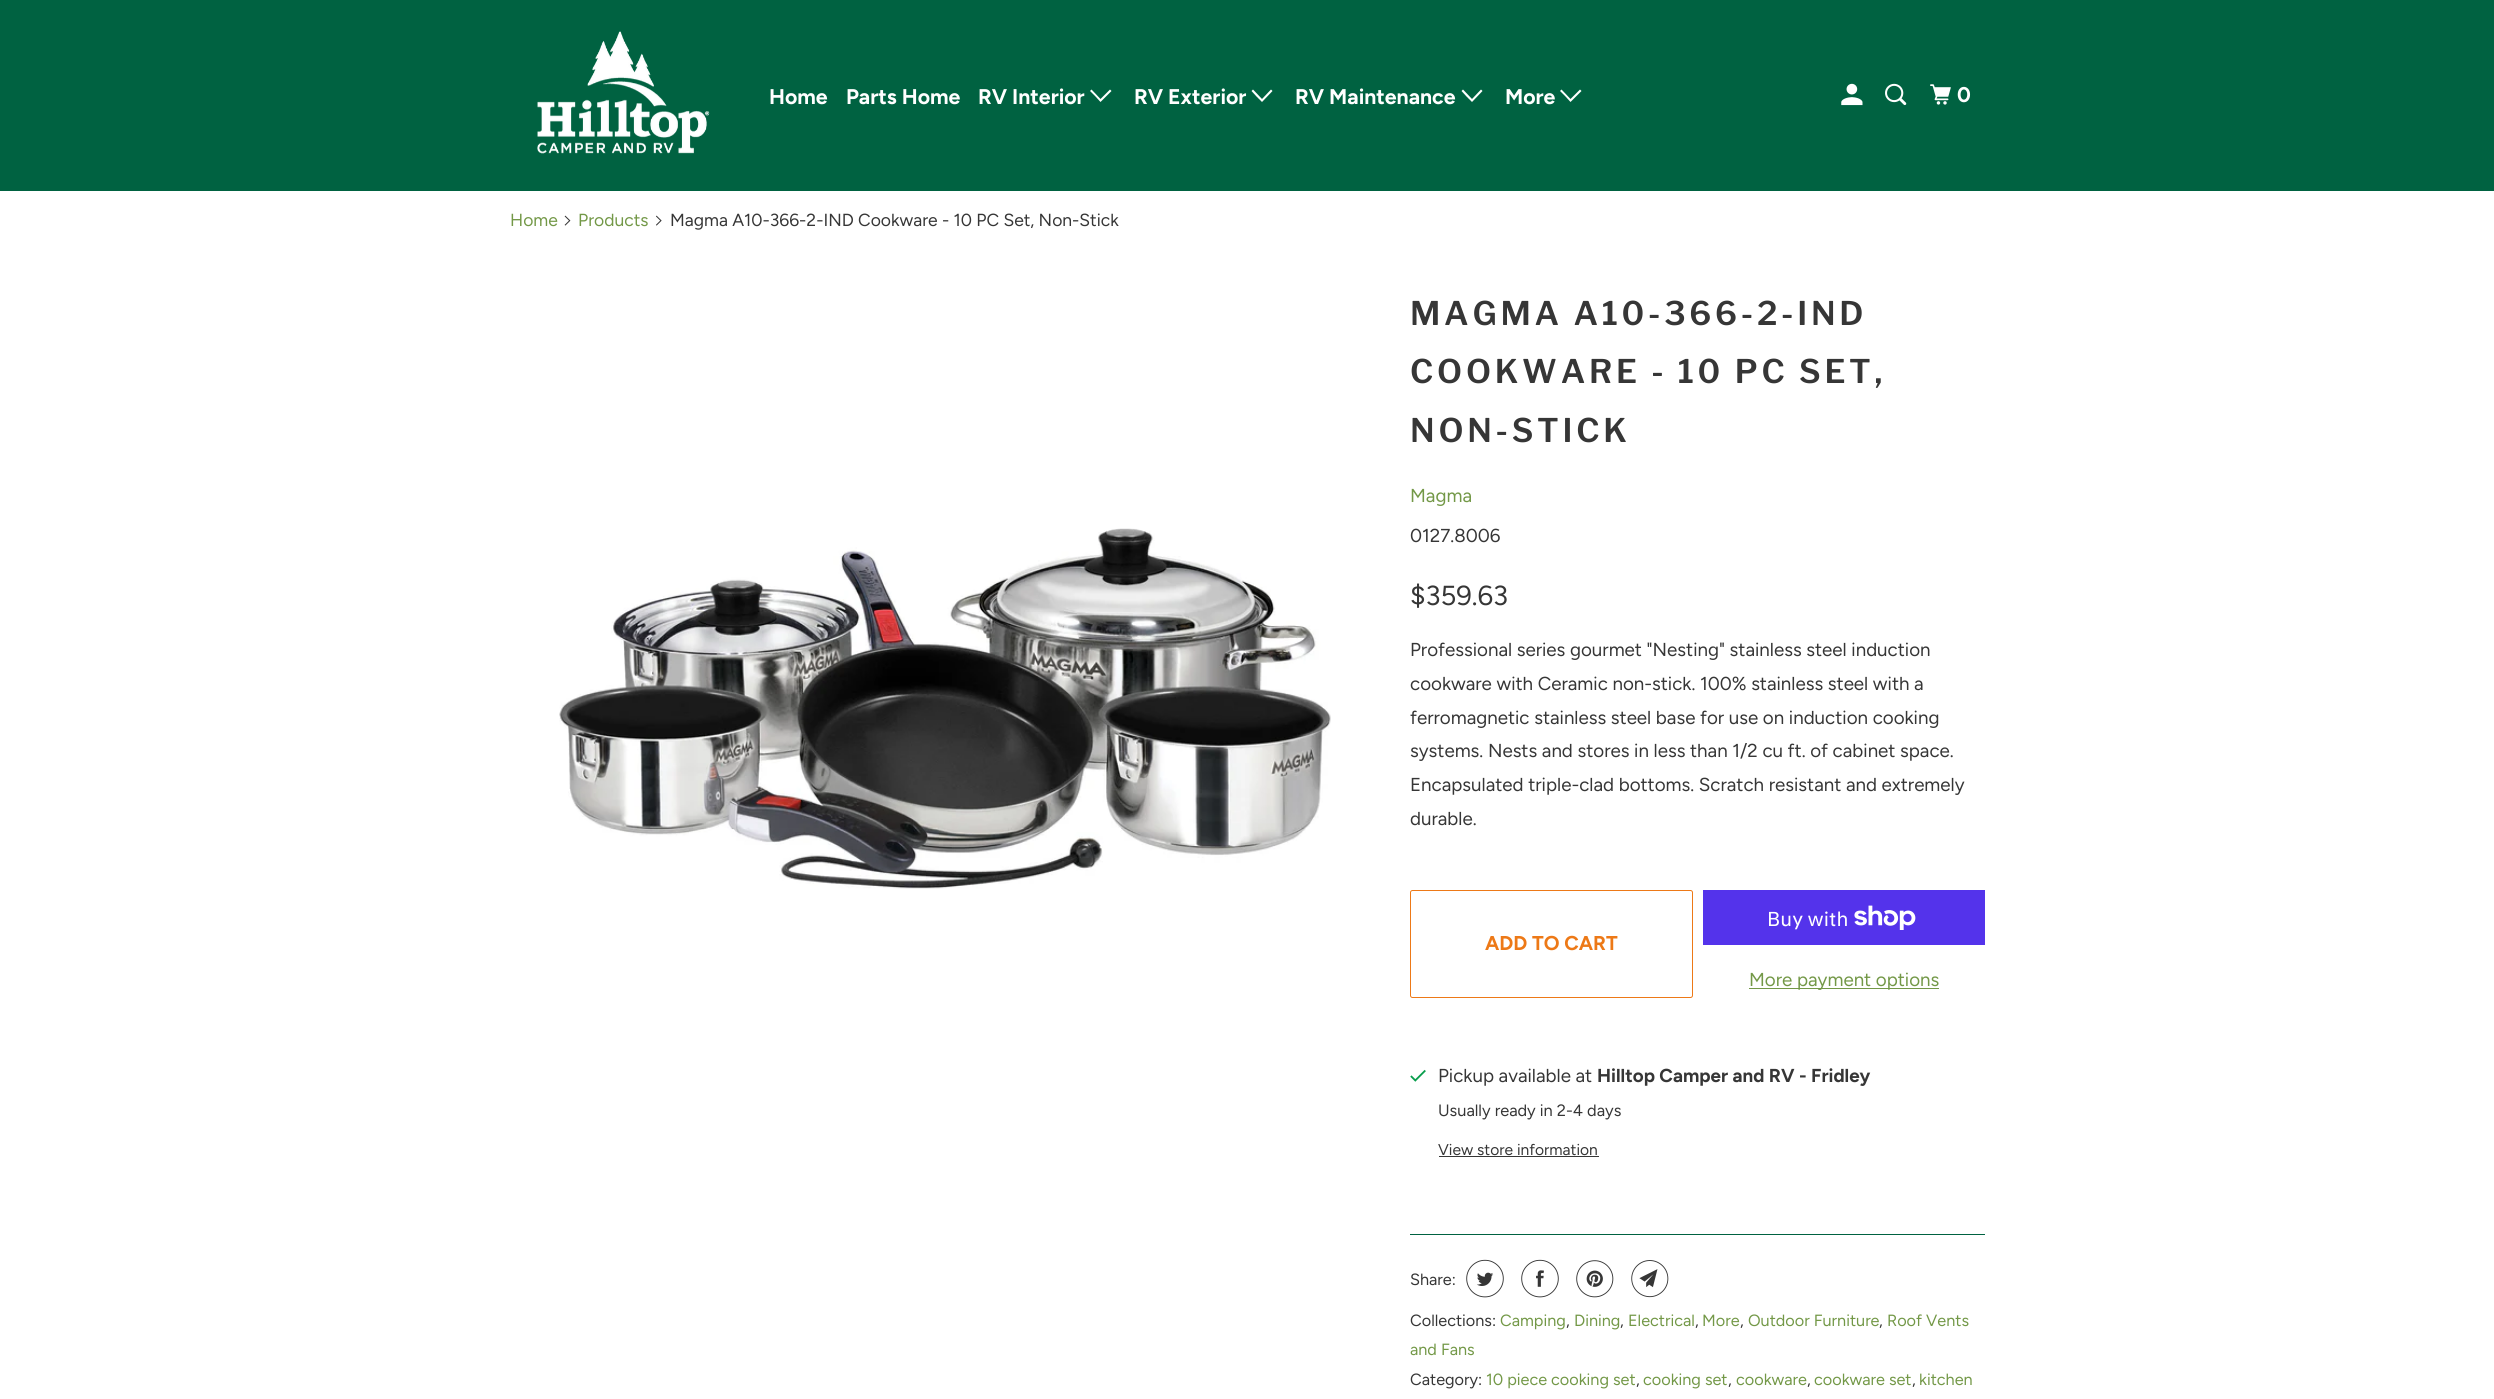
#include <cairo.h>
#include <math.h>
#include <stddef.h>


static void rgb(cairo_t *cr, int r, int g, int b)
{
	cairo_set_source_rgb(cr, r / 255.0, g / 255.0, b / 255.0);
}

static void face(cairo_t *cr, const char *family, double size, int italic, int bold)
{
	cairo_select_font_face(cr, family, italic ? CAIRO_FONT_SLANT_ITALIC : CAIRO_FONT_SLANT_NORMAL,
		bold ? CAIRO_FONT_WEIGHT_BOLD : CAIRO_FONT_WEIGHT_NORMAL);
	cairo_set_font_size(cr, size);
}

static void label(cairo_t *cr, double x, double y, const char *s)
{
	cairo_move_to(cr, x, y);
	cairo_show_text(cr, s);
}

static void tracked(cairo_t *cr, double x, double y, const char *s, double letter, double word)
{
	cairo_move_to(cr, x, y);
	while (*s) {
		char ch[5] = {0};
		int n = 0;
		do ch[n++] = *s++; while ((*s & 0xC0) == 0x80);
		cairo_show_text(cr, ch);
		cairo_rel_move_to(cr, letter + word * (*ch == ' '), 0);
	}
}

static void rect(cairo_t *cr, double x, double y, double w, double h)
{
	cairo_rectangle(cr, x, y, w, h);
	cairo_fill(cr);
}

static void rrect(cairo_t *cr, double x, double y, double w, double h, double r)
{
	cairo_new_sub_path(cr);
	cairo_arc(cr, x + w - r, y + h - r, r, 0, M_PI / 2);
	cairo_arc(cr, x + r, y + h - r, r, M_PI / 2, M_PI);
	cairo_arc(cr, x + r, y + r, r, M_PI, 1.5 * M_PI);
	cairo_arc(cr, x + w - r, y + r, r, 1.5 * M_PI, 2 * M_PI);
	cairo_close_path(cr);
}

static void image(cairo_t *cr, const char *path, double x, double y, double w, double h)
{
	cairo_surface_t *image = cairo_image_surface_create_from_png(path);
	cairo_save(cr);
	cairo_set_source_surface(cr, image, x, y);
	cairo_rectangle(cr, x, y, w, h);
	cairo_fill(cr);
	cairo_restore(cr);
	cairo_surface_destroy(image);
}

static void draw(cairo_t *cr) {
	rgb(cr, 255, 255, 255);
	cairo_paint(cr);
	rgb(cr, 0, 98, 65);
	rect(cr, 0, 0, 2494, 191);
	image(cr, "image0.png", 537, 31, 173, 123);
	face(cr, "Figtree", 21.25, 0, 1);
	rgb(cr, 255, 255, 255);
	label(cr, 769, 104, "Home");
	label(cr, 846, 104, "Parts Home");
	label(cr, 978, 104, "RV Interior");
	cairo_new_path(cr);
	cairo_move_to(cr, 1095.5, 96.5);
	cairo_line_to(cr, 1090, 91);
	cairo_line_to(cr, 1091.5, 89.5);
	cairo_line_to(cr, 1100.5, 99);
	cairo_line_to(cr, 1110, 89.5);
	cairo_line_to(cr, 1111.5, 91);
	cairo_line_to(cr, 1100.5, 102);
	cairo_close_path(cr);
	cairo_fill(cr);
	label(cr, 1134, 104, "RV Exterior");
	cairo_new_path(cr);
	cairo_move_to(cr, 1256.5, 96.5);
	cairo_line_to(cr, 1251.5, 91);
	cairo_line_to(cr, 1253, 89.5);
	cairo_line_to(cr, 1262, 99);
	cairo_line_to(cr, 1271, 89.5);
	cairo_line_to(cr, 1272.5, 91);
	cairo_line_to(cr, 1262, 102);
	cairo_close_path(cr);
	cairo_fill(cr);
	label(cr, 1295, 104, "RV Maintenance");
	cairo_new_path(cr);
	cairo_move_to(cr, 1466.5, 96.5);
	cairo_line_to(cr, 1461.5, 91);
	cairo_line_to(cr, 1463, 89.5);
	cairo_line_to(cr, 1472, 99);
	cairo_line_to(cr, 1481, 89.5);
	cairo_line_to(cr, 1482.5, 91);
	cairo_line_to(cr, 1472, 102);
	cairo_close_path(cr);
	cairo_fill(cr);
	label(cr, 1505, 104, "More");
	cairo_new_path(cr);
	cairo_move_to(cr, 1565.5, 96.5);
	cairo_line_to(cr, 1560, 91);
	cairo_line_to(cr, 1561.5, 89.5);
	cairo_line_to(cr, 1570.5, 99);
	cairo_line_to(cr, 1580, 89.5);
	cairo_line_to(cr, 1581.5, 91);
	cairo_line_to(cr, 1570.5, 102);
	cairo_close_path(cr);
	cairo_fill(cr);
	image(cr, "image1.png", 1841, 83, 22, 23);
	image(cr, "image2.png", 1885, 83, 22, 23);
	image(cr, "image3.png", 1930, 84, 21, 21);
	label(cr, 1957, 102, "0");
	face(cr, "Figtree", 17.5, 0, 0);
	rgb(cr, 115, 152, 71);
	label(cr, 510, 226, "Home");
	image(cr, "image4.png", 564, 215, 7, 11);
	label(cr, 578, 226, "Products");
	image(cr, "image5.png", 656, 215, 6, 11);
	rgb(cr, 54, 54, 54);
	label(cr, 670, 226, "Magma A10-366-2-IND Cookware - 10 PC Set, Non-Stick");
	image(cr, "image6.png", 559, 528, 772, 361);
	face(cr, "Libre Franklin SemiBold", 32.5, 0, 0);
	tracked(cr, 1410, 325, "MAGMA A10-366-2-IND", 3.75, 0);
	tracked(cr, 1410, 383, "COOKWARE - 10 PC SET,", 3.75, 0);
	tracked(cr, 1410, 442, "NON-STICK", 3.75, 0);
	face(cr, "Figtree", 18.75, 0, 0);
	rgb(cr, 115, 152, 71);
	label(cr, 1410, 502, "Magma");
	rgb(cr, 54, 54, 54);
	label(cr, 1410, 542, "0127.8006");
	face(cr, "Figtree", 27.5, 0, 0);
	label(cr, 1410, 605, "$359.63");
	face(cr, "Figtree", 18.75, 0, 0);
	label(cr, 1410, 656, "Professional series gourmet \"Nesting\" stainless steel induction");
	label(cr, 1410, 690, "cookware with Ceramic non-stick. 100% stainless steel with a");
	label(cr, 1410, 724, "ferromagnetic stainless steel base for use on induction cooking");
	label(cr, 1410, 757, "systems. Nests and stores in less than 1/2 cu ft. of cabinet space.");
	label(cr, 1410, 791, "Encapsulated triple-clad bottoms. Scratch resistant and extremely");
	label(cr, 1410, 825, "durable.");
	rrect(cr, 1410.5, 890.5, 282, 107, 2);
	rgb(cr, 237, 121, 23);
	cairo_set_line_width(cr, 1);
	cairo_stroke(cr);
	face(cr, "Figtree", 20, 0, 1);
	label(cr, 1485, 950, "ADD TO CART");
	rgb(cr, 84, 51, 235);
	rect(cr, 1703, 890, 282, 55);
	face(cr, "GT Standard", 20, 0, 0);
	rgb(cr, 255, 255, 255);
	label(cr, 1767, 926, "Buy with");
	image(cr, "image7.png", 1854, 905, 62, 25);
	rgb(cr, 115, 152, 71);
	rect(cr, 1749, 988, 190, 1);
	face(cr, "Figtree", 18.75, 0, 0);
	label(cr, 1749, 986, "More payment options");
	image(cr, "image8.png", 1410, 1069, 16, 13);
	rgb(cr, 54, 54, 54);
	label(cr, 1438, 1082, "Pickup available at");
	face(cr, "Figtree", 18.75, 0, 1);
	label(cr, 1597, 1082, "Hilltop Camper and RV - Fridley");
	face(cr, "Figtree", 16.4, 0, 0);
	label(cr, 1438, 1116, "Usually ready in 2-4 days");
	face(cr, "Figtree", 15.6, 0, 0);
	label(cr, 1438, 1155, "View store information");
	rect(cr, 1439, 1156, 160, 1);
	rgb(cr, 0, 98, 65);
	rect(cr, 1410, 1234, 575, 1);
	face(cr, "Figtree", 16.25, 0, 0);
	rgb(cr, 54, 54, 54);
	label(cr, 1410, 1285, "Share:");
	image(cr, "image9.png", 1466, 1259, 38, 39);
	image(cr, "image10.png", 1521, 1259, 38, 39);
	image(cr, "image11.png", 1576, 1260, 38, 38);
	image(cr, "image12.png", 1631, 1260, 38, 38);
	label(cr, 1410, 1326, "Collections:");
	rgb(cr, 115, 152, 71);
	label(cr, 1500, 1326, "Camping");
	rgb(cr, 54, 54, 54);
	label(cr, 1566, 1326, ",");
	rgb(cr, 115, 152, 71);
	label(cr, 1574, 1326, "Dining");
	rgb(cr, 54, 54, 54);
	label(cr, 1620, 1326, ",");
	rgb(cr, 115, 152, 71);
	label(cr, 1628, 1326, "Electrical");
	rgb(cr, 54, 54, 54);
	label(cr, 1695, 1326, ",");
	rgb(cr, 115, 152, 71);
	label(cr, 1702, 1326, "More");
	rgb(cr, 54, 54, 54);
	label(cr, 1740, 1326, ",");
	rgb(cr, 115, 152, 71);
	label(cr, 1748, 1326, "Outdoor Furniture");
	rgb(cr, 54, 54, 54);
	label(cr, 1879, 1326, ",");
	rgb(cr, 115, 152, 71);
	label(cr, 1887, 1326, "Roof Vents");
	label(cr, 1410, 1355, "and Fans");
	rgb(cr, 54, 54, 54);
	label(cr, 1410, 1385, "Category:");
	rgb(cr, 115, 152, 71);
	label(cr, 1486, 1385, "10 piece cooking set");
	rgb(cr, 54, 54, 54);
	label(cr, 1636, 1385, ",");
	rgb(cr, 115, 152, 71);
	label(cr, 1643, 1385, "cooking set");
	rgb(cr, 54, 54, 54);
	label(cr, 1728, 1385, ",");
	rgb(cr, 115, 152, 71);
	label(cr, 1736, 1385, "cookware");
	rgb(cr, 54, 54, 54);
	label(cr, 1807, 1385, ",");
	rgb(cr, 115, 152, 71);
	label(cr, 1814, 1385, "cookware set");
	rgb(cr, 54, 54, 54);
	label(cr, 1912, 1385, ",");
	rgb(cr, 115, 152, 71);
	label(cr, 1919, 1385, "kitchen");
}

int main(void) {
	cairo_surface_t *surface = cairo_image_surface_create(CAIRO_FORMAT_RGB24, 2494, 1399);
	cairo_t *cr = cairo_create(surface);
	cairo_font_options_t *options = cairo_font_options_create();
	cairo_font_options_set_hint_metrics(options, CAIRO_HINT_METRICS_OFF);
	cairo_font_options_set_hint_style(options, CAIRO_HINT_STYLE_NONE);
	cairo_set_font_options(cr, options);
	cairo_set_miter_limit(cr, 4);
	draw(cr);
	cairo_surface_write_to_png(surface, "render.png");
	cairo_font_options_destroy(options);
	cairo_destroy(cr);
	cairo_surface_destroy(surface);
	return 0;
}
